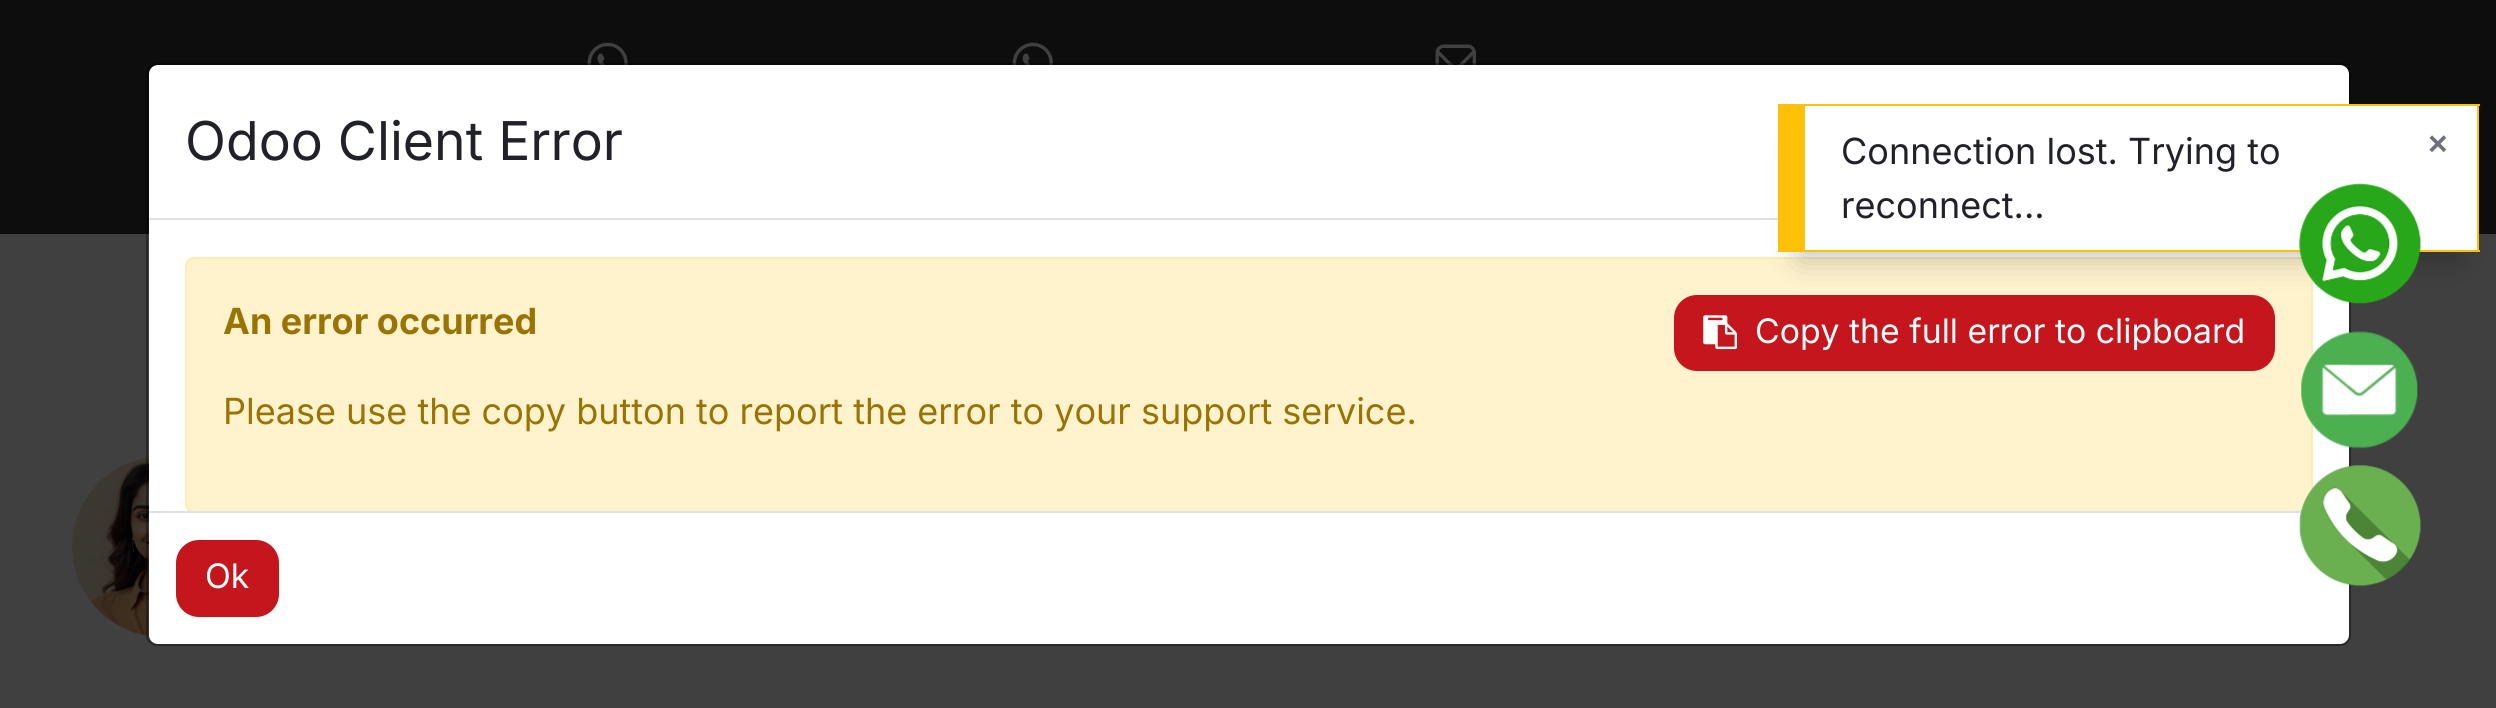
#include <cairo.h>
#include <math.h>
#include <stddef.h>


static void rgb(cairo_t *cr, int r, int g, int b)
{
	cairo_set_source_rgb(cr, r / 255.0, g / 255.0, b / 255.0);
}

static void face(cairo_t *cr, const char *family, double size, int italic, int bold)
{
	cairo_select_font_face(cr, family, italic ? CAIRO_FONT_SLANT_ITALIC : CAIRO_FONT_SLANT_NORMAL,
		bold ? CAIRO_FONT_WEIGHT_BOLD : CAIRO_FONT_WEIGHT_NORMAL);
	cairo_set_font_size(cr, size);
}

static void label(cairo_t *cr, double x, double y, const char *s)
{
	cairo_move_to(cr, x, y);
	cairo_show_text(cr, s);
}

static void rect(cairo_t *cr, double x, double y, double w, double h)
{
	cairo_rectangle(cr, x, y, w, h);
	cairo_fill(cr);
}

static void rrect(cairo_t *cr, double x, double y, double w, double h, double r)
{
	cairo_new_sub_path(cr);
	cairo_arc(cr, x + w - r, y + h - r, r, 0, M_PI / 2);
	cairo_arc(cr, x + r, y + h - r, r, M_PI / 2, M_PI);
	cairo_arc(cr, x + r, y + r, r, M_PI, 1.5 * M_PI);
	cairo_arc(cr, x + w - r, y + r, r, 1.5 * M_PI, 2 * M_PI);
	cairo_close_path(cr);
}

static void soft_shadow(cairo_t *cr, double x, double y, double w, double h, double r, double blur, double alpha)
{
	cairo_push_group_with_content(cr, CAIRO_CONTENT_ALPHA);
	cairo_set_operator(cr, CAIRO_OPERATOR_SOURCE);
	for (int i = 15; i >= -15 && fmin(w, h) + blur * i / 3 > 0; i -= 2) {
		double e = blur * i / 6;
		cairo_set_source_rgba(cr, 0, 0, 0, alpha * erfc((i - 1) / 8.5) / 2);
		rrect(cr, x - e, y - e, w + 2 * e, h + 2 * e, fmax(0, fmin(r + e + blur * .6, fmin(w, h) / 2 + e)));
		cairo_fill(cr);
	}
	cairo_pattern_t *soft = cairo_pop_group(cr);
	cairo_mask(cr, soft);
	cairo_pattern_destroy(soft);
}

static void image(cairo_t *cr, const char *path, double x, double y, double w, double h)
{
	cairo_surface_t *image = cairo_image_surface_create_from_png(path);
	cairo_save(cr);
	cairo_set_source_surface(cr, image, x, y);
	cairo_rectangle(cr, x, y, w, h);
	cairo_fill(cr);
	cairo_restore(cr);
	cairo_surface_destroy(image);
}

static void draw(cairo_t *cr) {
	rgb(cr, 64, 64, 64);
	cairo_paint(cr);
	rgb(cr, 13, 13, 13);
	rect(cr, 0, 0, 2496, 234);
	image(cr, "image0.png", 587, 42, 41, 23);
	image(cr, "image1.png", 1012, 42, 41, 23);
	image(cr, "image2.png", 1435, 44, 41, 21);
	image(cr, "image3.png", 72, 457, 78, 179);
	rrect(cr, 147, 64, 2203, 581, 10);
	cairo_set_source_rgba(cr, 0, 0, 0, 0.2);
	cairo_stroke(cr);
	rgb(cr, 255, 255, 255);
	rrect(cr, 149, 65, 2200, 579, 9);
	cairo_fill(cr);
	rrect(cr, 147, 64, 2203, 581, 10);
	cairo_set_source_rgba(cr, 0, 0, 0, 0.2);
	cairo_stroke(cr);
	rgb(cr, 222, 226, 230);
	rect(cr, 149, 218, 1629, 2);
	face(cr, "Inter", 53.5, 0, 0);
	rgb(cr, 33, 34, 41);
	label(cr, 185, 160, "Odoo Client Error");
	rgb(cr, 222, 226, 230);
	rect(cr, 149, 511, 2153, 2);
	cairo_save(cr);
	cairo_rectangle(cr, 149, 221, 2200, 290);
	cairo_clip(cr);
	rgb(cr, 255, 243, 205);
	rrect(cr, 186, 258, 2126, 254, 8);
	cairo_fill_preserve(cr);
	rgb(cr, 255, 236, 181);
	cairo_stroke(cr);
	cairo_restore(cr);
	face(cr, "Inter", 36, 0, 1);
	rgb(cr, 153, 116, 4);
	label(cr, 223, 334, "An error occurred");
	rgb(cr, 196, 22, 28);
	rrect(cr, 1675, 296, 599, 74, 22);
	cairo_fill_preserve(cr);
	cairo_stroke(cr);
	image(cr, "image4.png", 1703, 315, 34, 35);
	face(cr, "Inter", 33.75, 0, 0);
	rgb(cr, 255, 255, 255);
	label(cr, 1755, 343, "Copy the full error to clipboard");
	face(cr, "Inter", 36, 0, 0);
	rgb(cr, 153, 116, 4);
	label(cr, 223, 424, "Please use the copy button to report the error to your support service.");
	rgb(cr, 196, 22, 28);
	rrect(cr, 177, 541, 101, 75, 22);
	cairo_fill_preserve(cr);
	cairo_stroke(cr);
	face(cr, "Inter", 33.75, 0, 0);
	rgb(cr, 255, 255, 255);
	label(cr, 205, 588, "Ok");
	rgb(cr, 0, 0, 0);
	soft_shadow(cr, 1800, 153, 657, 104, 0, 16, 0.25);
	rgb(cr, 255, 255, 255);
	rect(cr, 1805, 106, 672, 144);
	rgb(cr, 255, 193, 7);
	rect(cr, 1805, 104, 675, 2);
	rect(cr, 2477, 104, 2, 148);
	rect(cr, 1805, 250, 675, 2);
	rect(cr, 1778, 104, 27, 148);
	face(cr, "Inter", 36, 0, 0);
	rgb(cr, 33, 34, 41);
	label(cr, 1841, 164, "Connection lost. Trying to");
	label(cr, 1841, 218, "reconnect...");
	face(cr, "Liberation Sans", 33.75, 0, 1);
	rgb(cr, 108, 111, 125);
	label(cr, 2428, 155, "×");
	image(cr, "image5.png", 2299, 183, 123, 121);
	image(cr, "image6.png", 2301, 331, 117, 118);
	image(cr, "image7.png", 2299, 465, 123, 122);
}

int main(void) {
	cairo_surface_t *surface = cairo_image_surface_create(CAIRO_FORMAT_RGB24, 2496, 708);
	cairo_t *cr = cairo_create(surface);
	cairo_font_options_t *options = cairo_font_options_create();
	cairo_font_options_set_hint_metrics(options, CAIRO_HINT_METRICS_OFF);
	cairo_font_options_set_hint_style(options, CAIRO_HINT_STYLE_NONE);
	cairo_set_font_options(cr, options);
	cairo_set_miter_limit(cr, 4);
	draw(cr);
	cairo_surface_write_to_png(surface, "render.png");
	cairo_font_options_destroy(options);
	cairo_destroy(cr);
	cairo_surface_destroy(surface);
	return 0;
}
